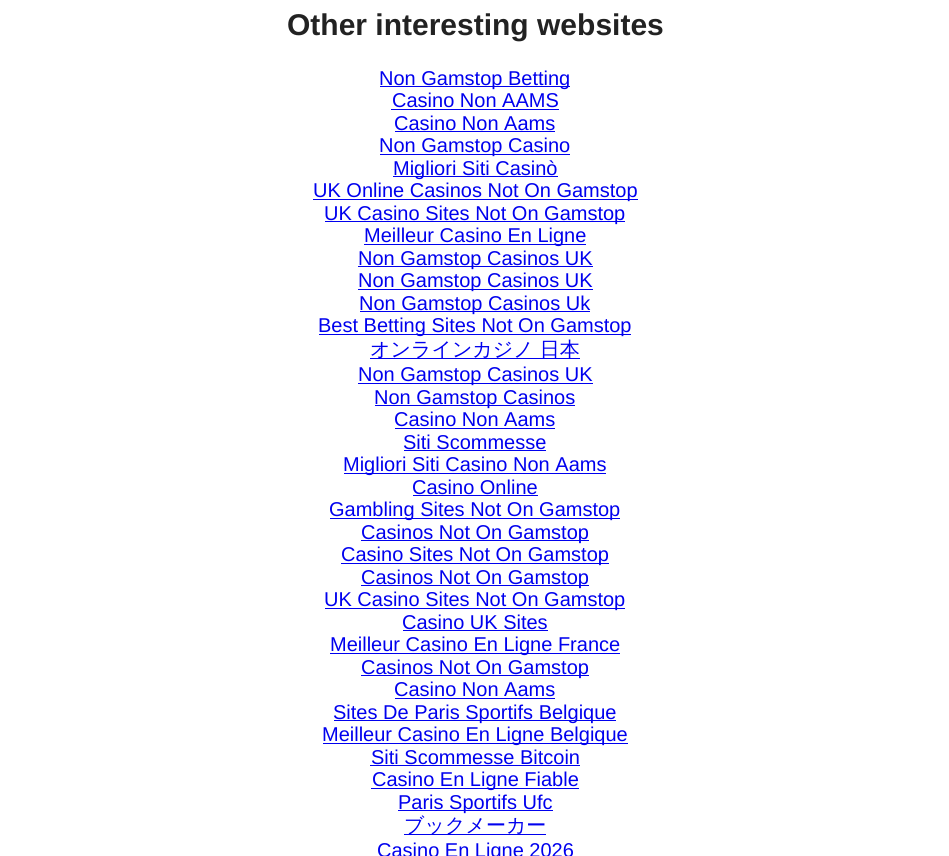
#include <cairo.h>
#include <math.h>
#include <stddef.h>


static void rgb(cairo_t *cr, int r, int g, int b)
{
	cairo_set_source_rgb(cr, r / 255.0, g / 255.0, b / 255.0);
}

static void face(cairo_t *cr, const char *family, double size, int italic, int bold)
{
	cairo_select_font_face(cr, family, italic ? CAIRO_FONT_SLANT_ITALIC : CAIRO_FONT_SLANT_NORMAL,
		bold ? CAIRO_FONT_WEIGHT_BOLD : CAIRO_FONT_WEIGHT_NORMAL);
	cairo_set_font_size(cr, size);
}

static void label(cairo_t *cr, double x, double y, const char *s)
{
	cairo_move_to(cr, x, y);
	cairo_show_text(cr, s);
}

static void rect(cairo_t *cr, double x, double y, double w, double h)
{
	cairo_rectangle(cr, x, y, w, h);
	cairo_fill(cr);
}

static void draw(cairo_t *cr) {
	rgb(cr, 255, 255, 255);
	cairo_paint(cr);
	face(cr, "Liberation Sans", 30, 0, 1);
	rgb(cr, 34, 34, 34);
	label(cr, 287, 35, "Other interesting websites");
	rgb(cr, 0, 0, 238);
	rect(cr, 380, 86, 190, 1);
	face(cr, "Liberation Sans", 20, 0, 0);
	label(cr, 379, 85, "Non Gamstop Betting");
	label(cr, 392, 107, "Casino Non AAMS");
	rect(cr, 391, 109, 168, 1);
	label(cr, 394, 130, "Casino Non Aams");
	rect(cr, 395, 131, 160, 1);
	rect(cr, 380, 154, 190, 1);
	label(cr, 379, 152, "Non Gamstop Casino");
	rect(cr, 393, 176, 165, 1);
	label(cr, 393, 175, "Migliori Siti Casinò");
	rect(cr, 313, 199, 325, 1);
	label(cr, 313, 197, "UK Online Casinos Not On Gamstop");
	rect(cr, 325, 221, 300, 1);
	label(cr, 324, 220, "UK Casino Sites Not On Gamstop");
	rect(cr, 364, 244, 222, 1);
	label(cr, 364, 242, "Meilleur Casino En Ligne");
	rect(cr, 358, 266, 235, 1);
	label(cr, 358, 265, "Non Gamstop Casinos UK");
	rect(cr, 358, 289, 235, 1);
	label(cr, 358, 287, "Non Gamstop Casinos UK");
	rect(cr, 360, 311, 230, 1);
	label(cr, 359, 310, "Non Gamstop Casinos Uk");
	rect(cr, 319, 334, 312, 1);
	label(cr, 318, 332, "Best Betting Sites Not On Gamstop");
	rect(cr, 370, 358, 210, 1);
	face(cr, "WenQuanYi Zen Hei Medium", 20, 0, 0);
	label(cr, 370, 356, "オンラインカジノ 日本");
	rect(cr, 358, 383, 235, 1);
	face(cr, "Liberation Sans", 20, 0, 0);
	label(cr, 358, 381, "Non Gamstop Casinos UK");
	rect(cr, 375, 405, 200, 1);
	label(cr, 374, 404, "Non Gamstop Casinos");
	label(cr, 394, 426, "Casino Non Aams");
	rect(cr, 395, 428, 160, 1);
	label(cr, 403, 449, "Siti Scommesse");
	rect(cr, 404, 450, 142, 1);
	rect(cr, 344, 473, 262, 1);
	label(cr, 343, 471, "Migliori Siti Casino Non Aams");
	label(cr, 412, 494, "Casino Online");
	rect(cr, 413, 495, 125, 1);
	rect(cr, 330, 518, 290, 1);
	label(cr, 329, 516, "Gambling Sites Not On Gamstop");
	rect(cr, 361, 540, 228, 1);
	label(cr, 361, 539, "Casinos Not On Gamstop");
	rect(cr, 341, 563, 268, 1);
	label(cr, 341, 561, "Casino Sites Not On Gamstop");
	rect(cr, 361, 585, 228, 1);
	label(cr, 361, 584, "Casinos Not On Gamstop");
	rect(cr, 325, 608, 300, 1);
	label(cr, 324, 606, "UK Casino Sites Not On Gamstop");
	label(cr, 402, 629, "Casino UK Sites");
	rect(cr, 403, 630, 145, 1);
	rect(cr, 330, 653, 290, 1);
	label(cr, 330, 651, "Meilleur Casino En Ligne France");
	rect(cr, 361, 675, 228, 1);
	label(cr, 361, 674, "Casinos Not On Gamstop");
	label(cr, 394, 696, "Casino Non Aams");
	rect(cr, 395, 698, 160, 1);
	rect(cr, 334, 720, 282, 1);
	label(cr, 333, 719, "Sites De Paris Sportifs Belgique");
	rect(cr, 323, 743, 305, 1);
	label(cr, 322, 741, "Meilleur Casino En Ligne Belgique");
	label(cr, 371, 764, "Siti Scommesse Bitcoin");
	rect(cr, 370, 765, 210, 1);
	rect(cr, 371, 788, 208, 1);
	label(cr, 372, 786, "Casino En Ligne Fiable");
	rect(cr, 398, 810, 155, 1);
	label(cr, 398, 809, "Paris Sportifs Ufc");
	rect(cr, 404, 834, 142, 1);
	face(cr, "WenQuanYi Zen Hei Medium", 20, 0, 0);
	label(cr, 404, 832, "ブックメーカー");
	face(cr, "Liberation Sans", 20, 0, 0);
	label(cr, 377, 857, "Casino En Ligne 2026");
}

int main(void) {
	cairo_surface_t *surface = cairo_image_surface_create(CAIRO_FORMAT_RGB24, 949, 856);
	cairo_t *cr = cairo_create(surface);
	cairo_font_options_t *options = cairo_font_options_create();
	cairo_font_options_set_hint_metrics(options, CAIRO_HINT_METRICS_OFF);
	cairo_font_options_set_hint_style(options, CAIRO_HINT_STYLE_NONE);
	cairo_set_font_options(cr, options);
	cairo_set_miter_limit(cr, 4);
	draw(cr);
	cairo_surface_write_to_png(surface, "render.png");
	cairo_font_options_destroy(options);
	cairo_destroy(cr);
	cairo_surface_destroy(surface);
	return 0;
}
